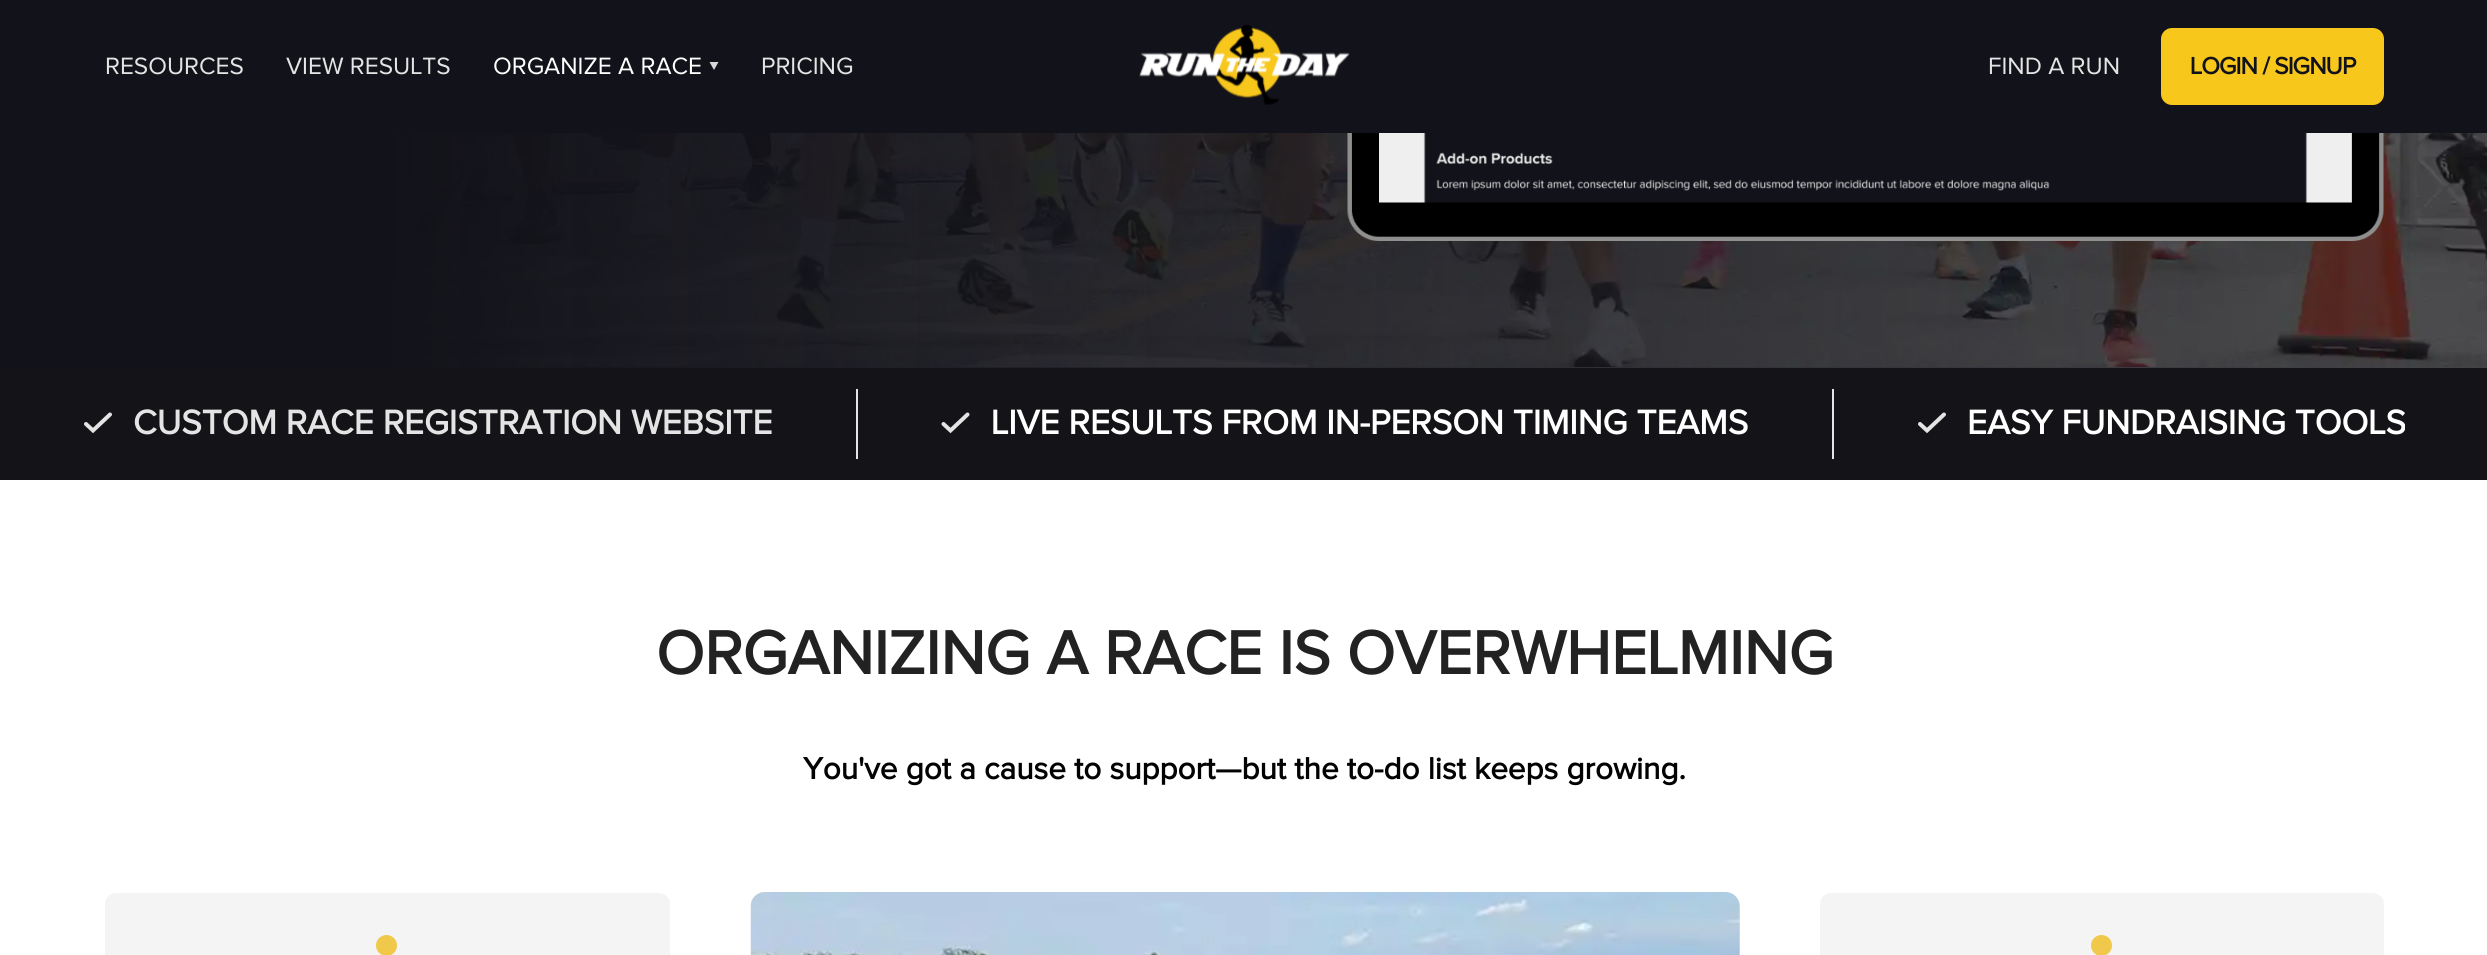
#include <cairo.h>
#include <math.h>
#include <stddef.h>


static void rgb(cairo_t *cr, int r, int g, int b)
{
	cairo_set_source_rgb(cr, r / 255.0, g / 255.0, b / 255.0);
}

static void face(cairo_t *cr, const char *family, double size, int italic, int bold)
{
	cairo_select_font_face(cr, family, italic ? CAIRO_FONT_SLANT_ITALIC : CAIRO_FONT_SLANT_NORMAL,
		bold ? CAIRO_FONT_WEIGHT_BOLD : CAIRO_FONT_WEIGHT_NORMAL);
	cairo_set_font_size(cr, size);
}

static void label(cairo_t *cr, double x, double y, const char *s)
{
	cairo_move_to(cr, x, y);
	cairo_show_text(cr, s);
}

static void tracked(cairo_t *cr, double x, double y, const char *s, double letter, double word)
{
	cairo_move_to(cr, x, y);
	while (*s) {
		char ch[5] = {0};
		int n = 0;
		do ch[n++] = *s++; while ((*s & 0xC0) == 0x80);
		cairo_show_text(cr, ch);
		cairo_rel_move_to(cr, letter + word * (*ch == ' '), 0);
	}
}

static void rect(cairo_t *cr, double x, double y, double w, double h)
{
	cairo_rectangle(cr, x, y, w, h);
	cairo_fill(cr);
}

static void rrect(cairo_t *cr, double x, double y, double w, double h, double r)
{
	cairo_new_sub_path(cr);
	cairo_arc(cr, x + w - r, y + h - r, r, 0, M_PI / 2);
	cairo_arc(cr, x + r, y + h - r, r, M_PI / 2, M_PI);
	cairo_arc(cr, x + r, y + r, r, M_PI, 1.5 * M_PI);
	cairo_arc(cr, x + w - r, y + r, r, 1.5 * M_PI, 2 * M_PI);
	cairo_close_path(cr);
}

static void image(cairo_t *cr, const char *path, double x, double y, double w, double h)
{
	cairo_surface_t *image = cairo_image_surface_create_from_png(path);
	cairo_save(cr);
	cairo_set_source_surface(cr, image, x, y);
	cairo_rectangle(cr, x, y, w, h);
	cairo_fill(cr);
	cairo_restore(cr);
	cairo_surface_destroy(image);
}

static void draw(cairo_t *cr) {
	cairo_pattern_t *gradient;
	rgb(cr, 255, 255, 255);
	cairo_paint(cr);
	rgb(cr, 18, 18, 26);
	rect(cr, 0, 0, 2487, 133);
	face(cr, "Proxima Nova", 24.5, 0, 0);
	rgb(cr, 228, 228, 228);
	label(cr, 105, 74, "RESOURCES");
	label(cr, 286, 74, "VIEW RESULTS");
	rgb(cr, 255, 255, 255);
	label(cr, 493, 74, "ORGANIZE A RACE");
	rgb(cr, 217, 217, 217);
	cairo_new_path(cr);
	cairo_move_to(cr, 714, 70);
	cairo_line_to(cr, 709.5, 62);
	cairo_line_to(cr, 718.5, 62);
	cairo_close_path(cr);
	cairo_fill(cr);
	rgb(cr, 228, 228, 228);
	label(cr, 761, 74, "PRICING");
	image(cr, "image0.png", 1139, 24, 211, 81);
	label(cr, 1988, 74, "FIND A RUN");
	rgb(cr, 248, 199, 28);
	rrect(cr, 2161, 28, 223, 77, 11);
	cairo_fill(cr);
	face(cr, "Proxima Nova", 24.5, 0, 1);
	rgb(cr, 18, 18, 27);
	tracked(cr, 2190, 74, "LOGIN / SIGNUP", -0.9, 0);
	rgb(cr, 66, 66, 73);
	rect(cr, 401, 133, 2086, 235);
	image(cr, "image1.png", 401, 133, 2086, 234);
	gradient = cairo_pattern_create_linear(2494, -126, -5.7, -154);
	cairo_pattern_add_color_stop_rgba(gradient, 0.01, 0.071, 0.071, 0.102, 0);
	cairo_pattern_add_color_stop_rgba(gradient, 0.84, 0.071, 0.071, 0.102, 1);
	cairo_set_source(cr, gradient);
	cairo_pattern_destroy(gradient);
	rect(cr, 0, 133, 2410, 235);
	image(cr, "image2.png", 1347, 133, 1037, 108);
	rgb(cr, 20, 20, 24);
	rect(cr, 0, 368, 2487, 112);
	rgb(cr, 228, 228, 228);
	rect(cr, 856, 389, 2, 70);
	cairo_new_path(cr);
	cairo_move_to(cr, 86, 424);
	cairo_line_to(cr, 93, 430.5);
	cairo_line_to(cr, 110, 414.5);
	cairo_set_line_width(cr, 4);
	cairo_set_line_cap(cr, CAIRO_LINE_CAP_ROUND);
	cairo_stroke(cr);
	face(cr, "Proxima Nova", 35, 0, 1);
	label(cr, 133, 434, "CUSTOM RACE REGISTRATION WEBSITE");
	rect(cr, 1832, 389, 2, 70);
	cairo_new_path(cr);
	cairo_move_to(cr, 943.5, 424);
	cairo_line_to(cr, 950.5, 430.5);
	cairo_line_to(cr, 967.5, 414.5);
	cairo_stroke(cr);
	rgb(cr, 255, 255, 255);
	label(cr, 991, 434, "LIVE RESULTS FROM IN-PERSON TIMING TEAMS");
	cairo_new_path(cr);
	cairo_move_to(cr, 1920, 424);
	cairo_line_to(cr, 1927, 430.5);
	cairo_line_to(cr, 1944, 414.5);
	rgb(cr, 228, 228, 228);
	cairo_stroke(cr);
	rgb(cr, 255, 255, 255);
	label(cr, 1967, 434, "EASY FUNDRAISING TOOLS");
	face(cr, "Proxima Nova", 63, 0, 1);
	rgb(cr, 34, 34, 34);
	label(cr, 656, 674, "ORGANIZING A RACE IS OVERWHELMING");
	face(cr, "Proxima Nova", 31.5, 0, 1);
	rgb(cr, 2, 2, 2);
	label(cr, 803, 779, "You've got a cause to support—but the to-do list keeps growing.");
	rgb(cr, 244, 244, 245);
	rrect(cr, 105, 893, 565, 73, 11);
	cairo_fill(cr);
	rgb(cr, 240, 201, 74);
	cairo_arc(cr, 386.5, 945.5, 10.5, 0, 2 * M_PI);
	cairo_fill(cr);
	rgb(cr, 228, 228, 228);
	rrect(cr, 751, 893, 989, 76, 14);
	cairo_fill(cr);
	image(cr, "image3.png", 750, 892, 990, 63);
	rgb(cr, 244, 244, 245);
	rrect(cr, 1820, 893, 564, 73, 11);
	cairo_fill(cr);
	rgb(cr, 240, 201, 74);
	cairo_arc(cr, 2101.5, 945.5, 10.5, 0, 2 * M_PI);
	cairo_fill(cr);
}

int main(void) {
	cairo_surface_t *surface = cairo_image_surface_create(CAIRO_FORMAT_RGB24, 2487, 955);
	cairo_t *cr = cairo_create(surface);
	cairo_font_options_t *options = cairo_font_options_create();
	cairo_font_options_set_hint_metrics(options, CAIRO_HINT_METRICS_OFF);
	cairo_font_options_set_hint_style(options, CAIRO_HINT_STYLE_NONE);
	cairo_set_font_options(cr, options);
	cairo_set_miter_limit(cr, 4);
	draw(cr);
	cairo_surface_write_to_png(surface, "render.png");
	cairo_font_options_destroy(options);
	cairo_destroy(cr);
	cairo_surface_destroy(surface);
	return 0;
}
